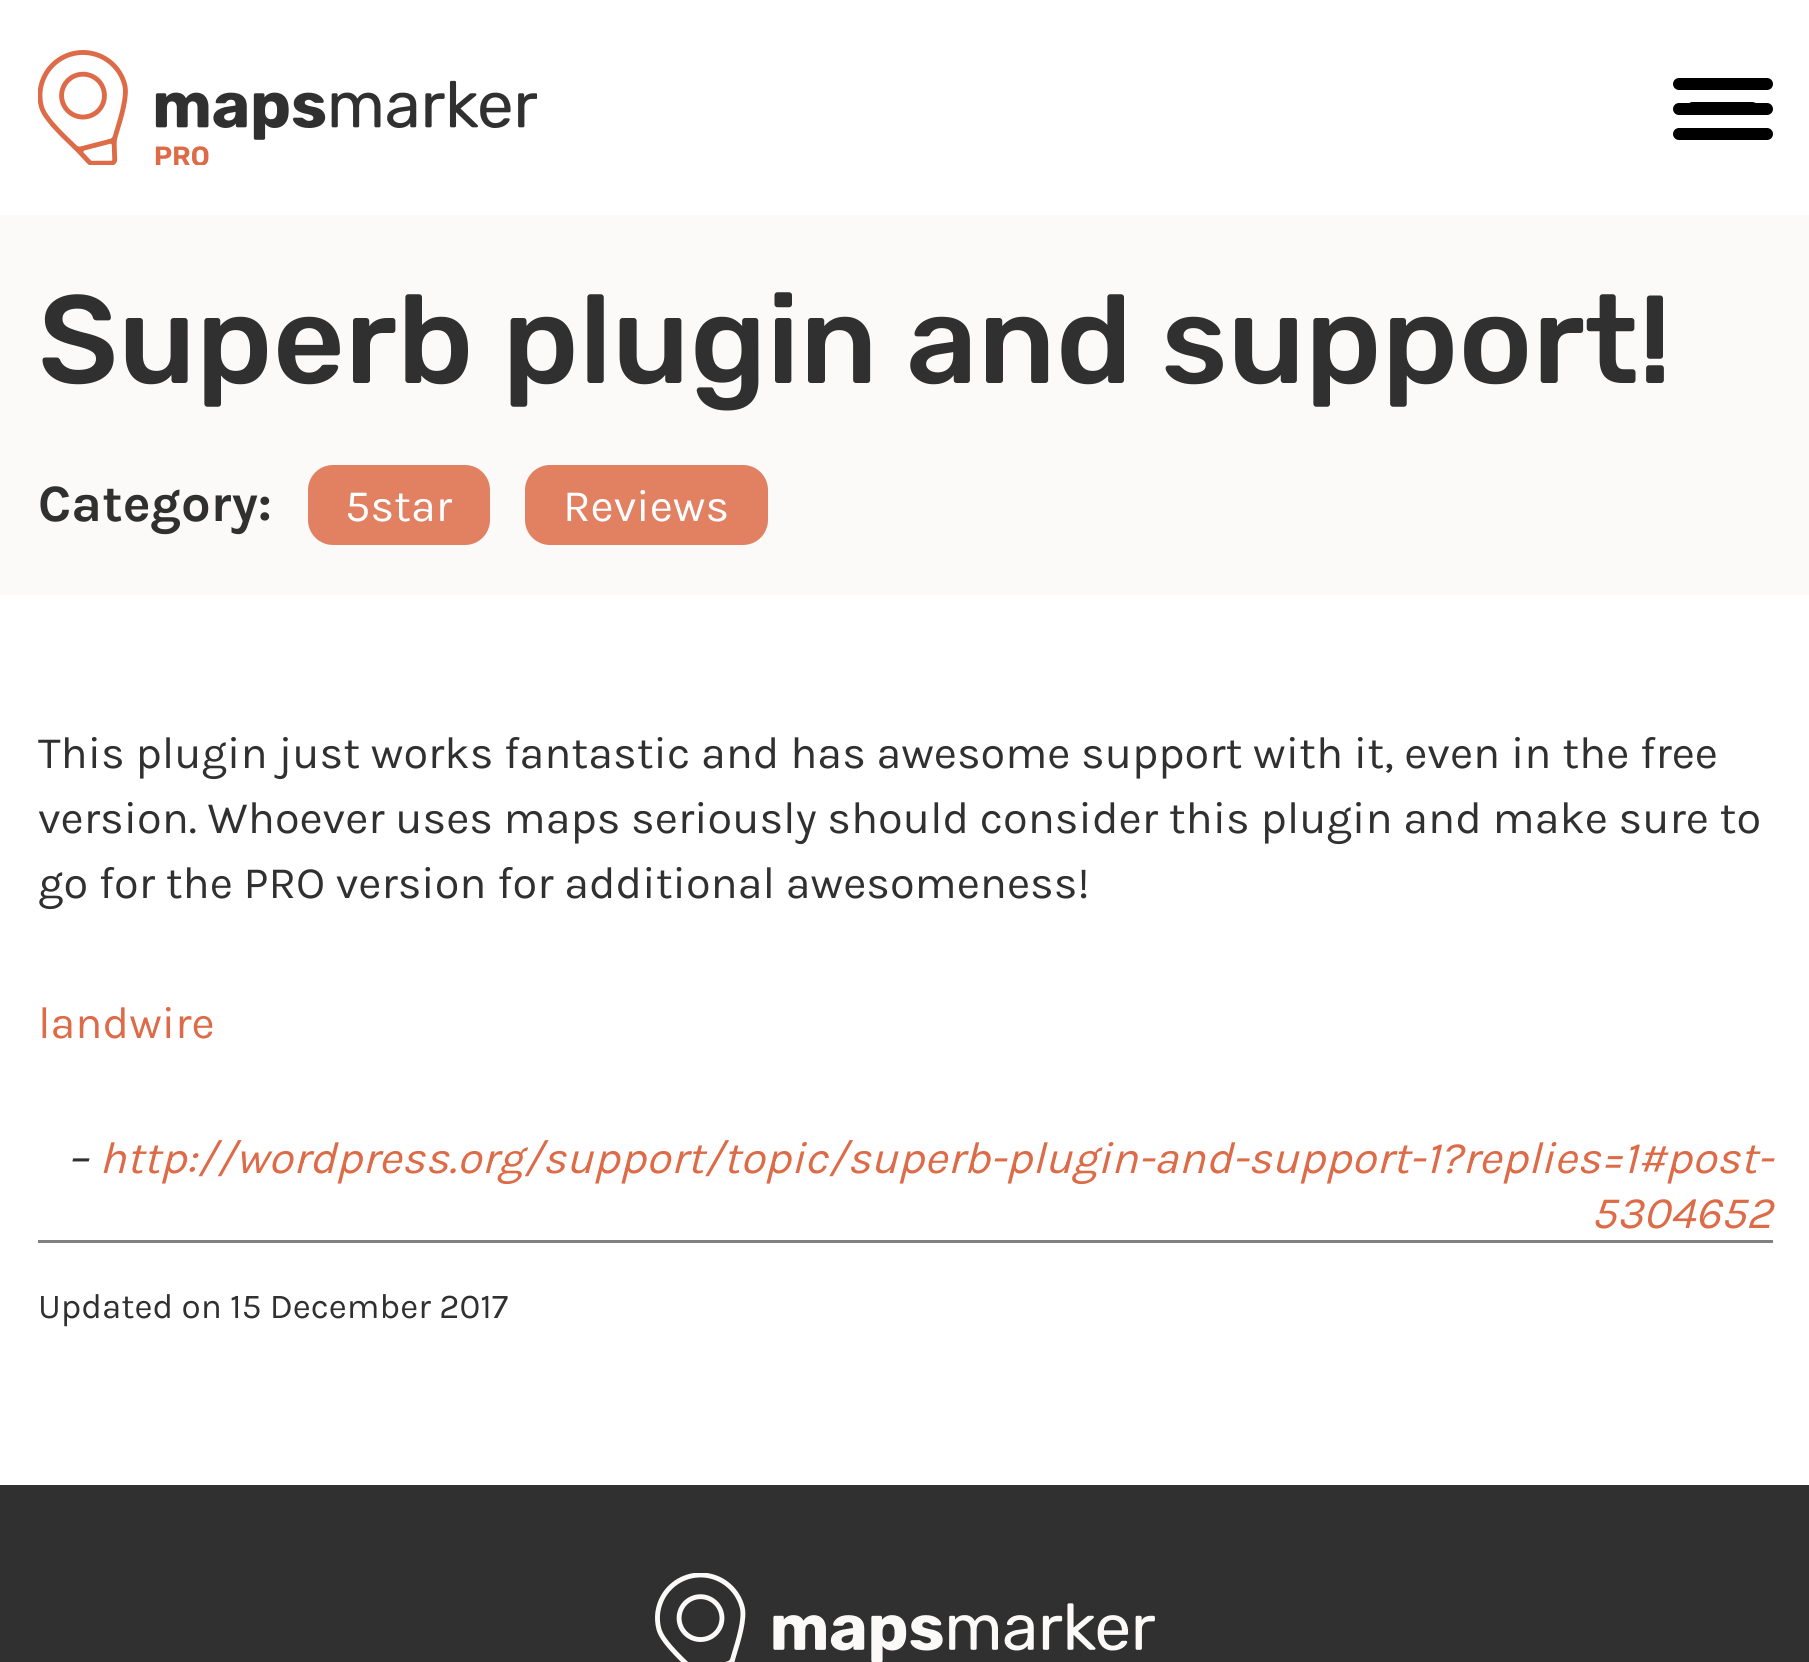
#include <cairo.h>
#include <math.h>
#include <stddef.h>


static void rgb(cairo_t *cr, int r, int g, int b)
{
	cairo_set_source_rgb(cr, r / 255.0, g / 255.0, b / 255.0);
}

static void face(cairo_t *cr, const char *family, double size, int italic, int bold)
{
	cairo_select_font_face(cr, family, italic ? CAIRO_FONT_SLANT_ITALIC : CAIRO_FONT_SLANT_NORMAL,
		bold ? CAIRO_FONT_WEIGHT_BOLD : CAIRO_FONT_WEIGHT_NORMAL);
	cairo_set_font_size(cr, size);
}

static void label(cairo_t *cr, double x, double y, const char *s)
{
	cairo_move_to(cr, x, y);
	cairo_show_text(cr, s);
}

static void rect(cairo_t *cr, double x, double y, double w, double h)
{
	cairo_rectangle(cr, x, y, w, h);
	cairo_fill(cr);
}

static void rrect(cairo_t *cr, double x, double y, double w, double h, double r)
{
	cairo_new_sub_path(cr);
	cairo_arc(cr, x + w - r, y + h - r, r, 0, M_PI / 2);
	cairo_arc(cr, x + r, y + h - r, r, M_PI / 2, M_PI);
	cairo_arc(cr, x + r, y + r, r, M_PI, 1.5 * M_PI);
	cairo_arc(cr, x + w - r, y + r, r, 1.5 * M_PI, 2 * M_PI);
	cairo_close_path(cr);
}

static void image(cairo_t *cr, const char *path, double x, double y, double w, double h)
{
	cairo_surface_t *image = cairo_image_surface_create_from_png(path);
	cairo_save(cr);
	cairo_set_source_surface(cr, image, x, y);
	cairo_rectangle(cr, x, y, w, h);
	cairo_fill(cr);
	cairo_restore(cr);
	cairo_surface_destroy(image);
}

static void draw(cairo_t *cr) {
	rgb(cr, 255, 255, 255);
	cairo_paint(cr);
	image(cr, "image0.png", 38, 50, 499, 115);
	rgb(cr, 0, 0, 0);
	rrect(cr, 1673, 78, 100, 12, 6);
	cairo_fill(cr);
	rrect(cr, 1673, 103, 100, 12, 6);
	cairo_fill(cr);
	cairo_new_path(cr);
	cairo_move_to(cr, 1758, 107);
	cairo_curve_to(cr, 1758, 109, 1755, 112, 1752, 112);
	cairo_line_to(cr, 1692, 112);
	cairo_curve_to(cr, 1690, 112, 1688, 109, 1688, 107);
	cairo_curve_to(cr, 1688, 104, 1690, 102, 1692, 102);
	cairo_line_to(cr, 1752, 102);
	cairo_curve_to(cr, 1755, 102, 1758, 104, 1758, 107);
	cairo_close_path(cr);
	cairo_fill(cr);
	rrect(cr, 1673, 128, 100, 12, 6);
	cairo_fill(cr);
	rgb(cr, 251, 250, 248);
	rect(cr, 0, 215, 1809, 380);
	face(cr, "Rubik Medium", 125, 0, 0);
	rgb(cr, 48, 48, 48);
	label(cr, 38, 383, "Superb plugin and support!");
	face(cr, "Karla", 52.5, 0, 1);
	label(cr, 38, 521, "Category:");
	rgb(cr, 226, 128, 98);
	rrect(cr, 308, 465, 182, 80, 25);
	cairo_fill(cr);
	face(cr, "Karla", 45, 0, 0);
	rgb(cr, 255, 255, 255);
	label(cr, 345, 521, "5star");
	rgb(cr, 226, 128, 98);
	rrect(cr, 525, 465, 243, 80, 25);
	cairo_fill(cr);
	rgb(cr, 255, 255, 255);
	label(cr, 563, 521, "Reviews");
	rgb(cr, 48, 48, 48);
	label(cr, 38, 768, "This plugin just works fantastic and has awesome support with it, even in the free");
	label(cr, 38, 833, "version. Whoever uses maps seriously should consider this plugin and make sure to");
	label(cr, 38, 898, "go for the PRO version for additional awesomeness!");
	rgb(cr, 221, 107, 72);
	label(cr, 38, 1038, "landwire");
	face(cr, "Karla", 45, 1, 0);
	rgb(cr, 48, 48, 48);
	label(cr, 67, 1173, "–");
	rgb(cr, 221, 107, 72);
	label(cr, 99, 1173, "http://wordpress.org/support/topic/superb-plugin-and-support-1?replies=1#post-");
	label(cr, 1591, 1228, "5304652");
	rgb(cr, 128, 128, 128);
	rect(cr, 38, 1240, 1735, 3);
	face(cr, "Karla", 35, 0, 0);
	rgb(cr, 48, 48, 48);
	label(cr, 38, 1318, "Updated on 15 December 2017");
	rect(cr, 0, 1485, 1809, 177);
	image(cr, "image1.png", 655, 1573, 500, 89);
}

int main(void) {
	cairo_surface_t *surface = cairo_image_surface_create(CAIRO_FORMAT_RGB24, 1809, 1662);
	cairo_t *cr = cairo_create(surface);
	cairo_font_options_t *options = cairo_font_options_create();
	cairo_font_options_set_hint_metrics(options, CAIRO_HINT_METRICS_OFF);
	cairo_font_options_set_hint_style(options, CAIRO_HINT_STYLE_NONE);
	cairo_set_font_options(cr, options);
	cairo_set_miter_limit(cr, 4);
	draw(cr);
	cairo_surface_write_to_png(surface, "render.png");
	cairo_font_options_destroy(options);
	cairo_destroy(cr);
	cairo_surface_destroy(surface);
	return 0;
}
